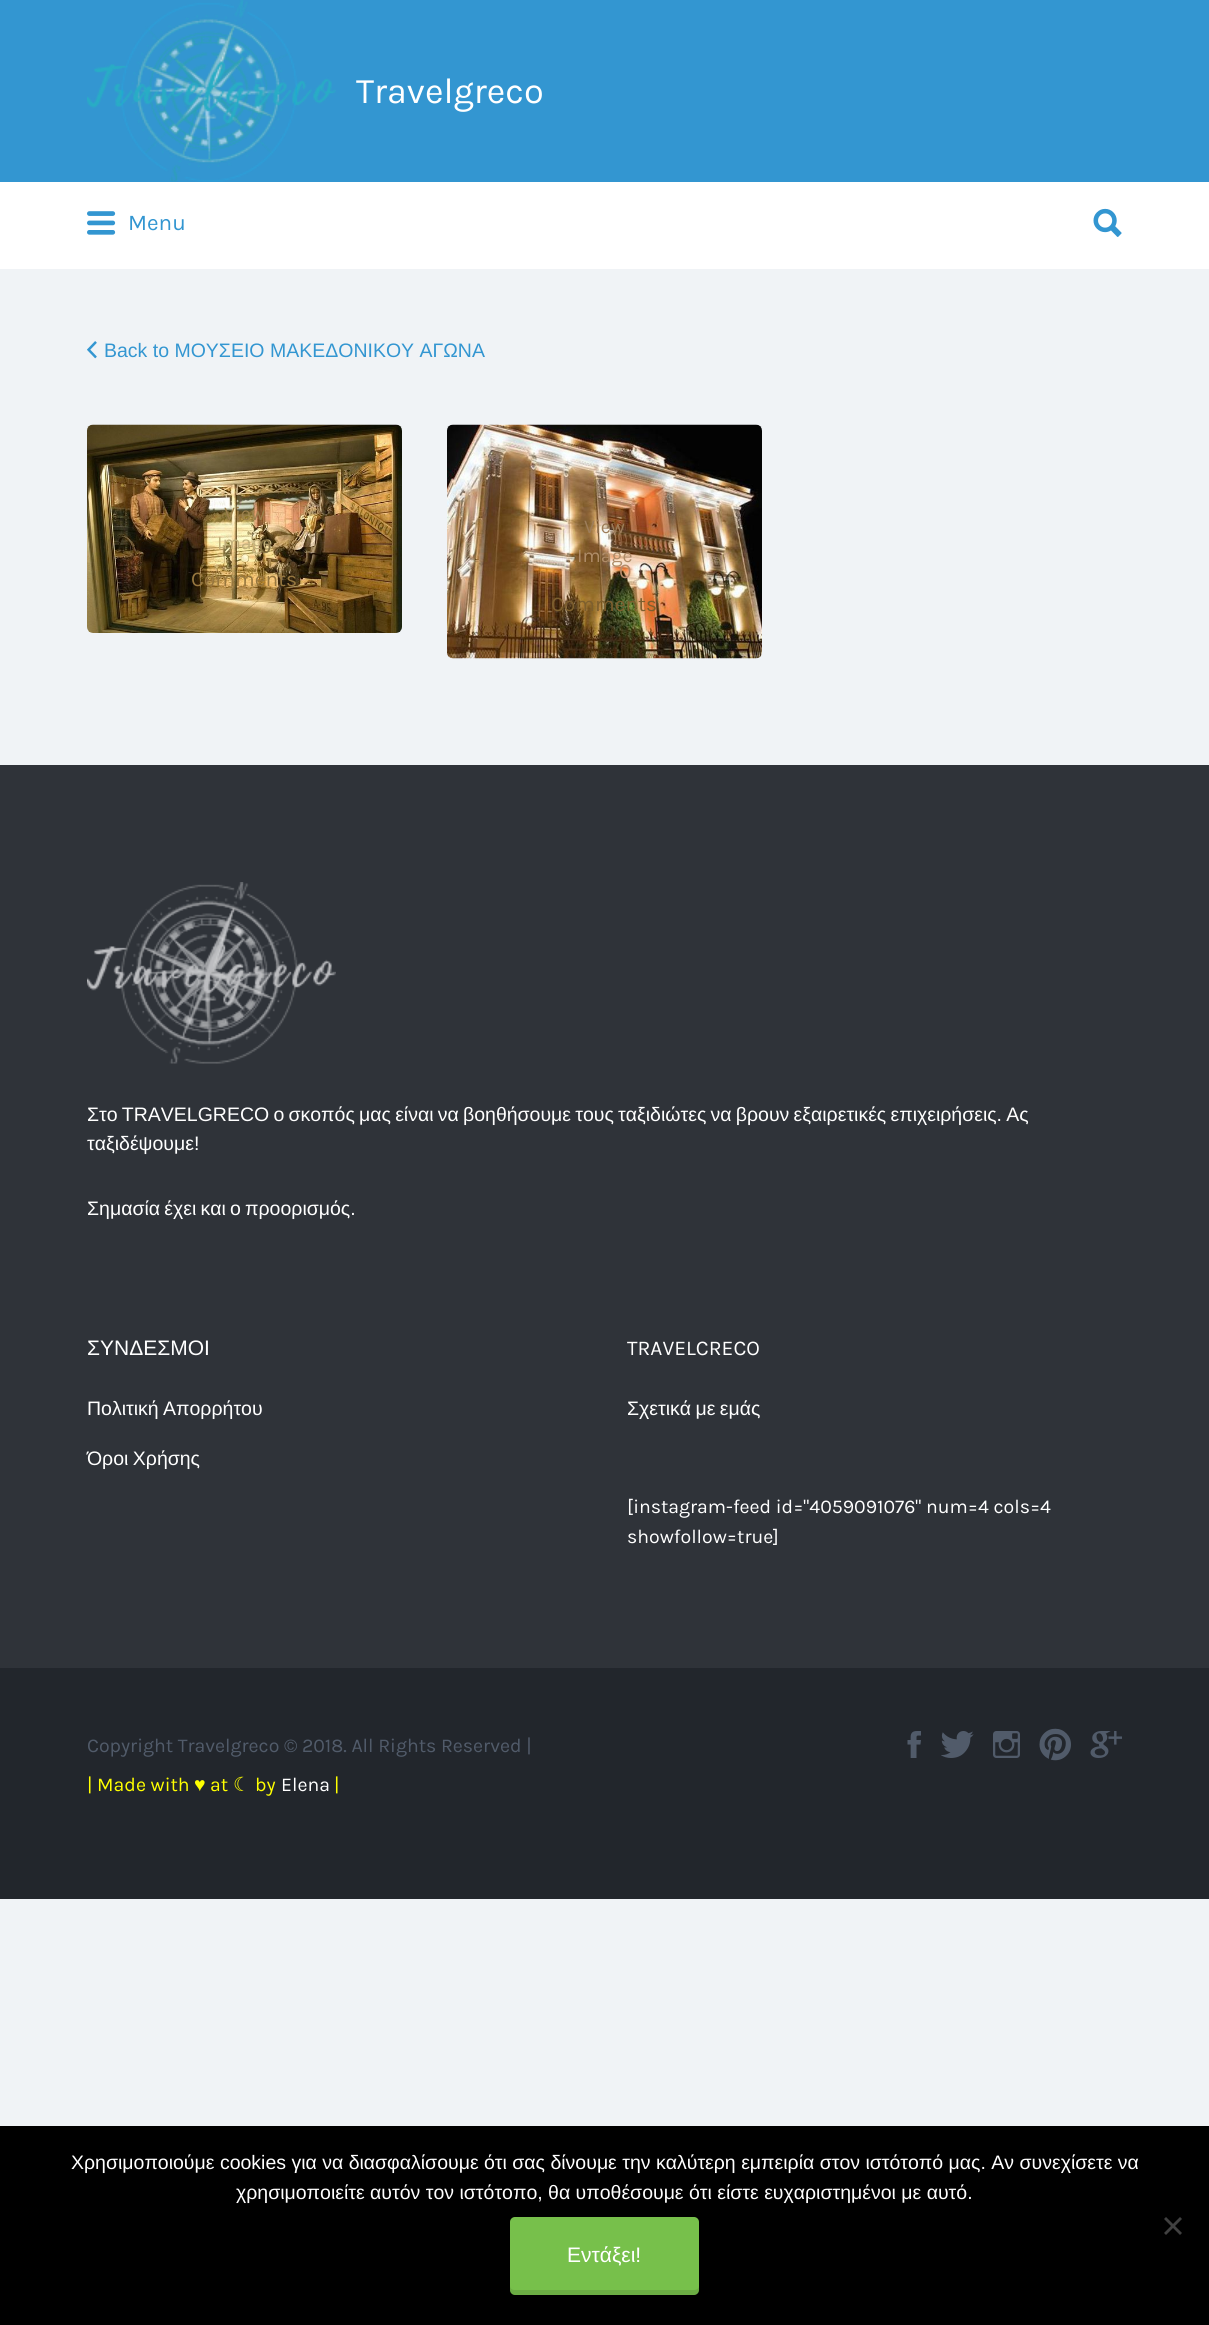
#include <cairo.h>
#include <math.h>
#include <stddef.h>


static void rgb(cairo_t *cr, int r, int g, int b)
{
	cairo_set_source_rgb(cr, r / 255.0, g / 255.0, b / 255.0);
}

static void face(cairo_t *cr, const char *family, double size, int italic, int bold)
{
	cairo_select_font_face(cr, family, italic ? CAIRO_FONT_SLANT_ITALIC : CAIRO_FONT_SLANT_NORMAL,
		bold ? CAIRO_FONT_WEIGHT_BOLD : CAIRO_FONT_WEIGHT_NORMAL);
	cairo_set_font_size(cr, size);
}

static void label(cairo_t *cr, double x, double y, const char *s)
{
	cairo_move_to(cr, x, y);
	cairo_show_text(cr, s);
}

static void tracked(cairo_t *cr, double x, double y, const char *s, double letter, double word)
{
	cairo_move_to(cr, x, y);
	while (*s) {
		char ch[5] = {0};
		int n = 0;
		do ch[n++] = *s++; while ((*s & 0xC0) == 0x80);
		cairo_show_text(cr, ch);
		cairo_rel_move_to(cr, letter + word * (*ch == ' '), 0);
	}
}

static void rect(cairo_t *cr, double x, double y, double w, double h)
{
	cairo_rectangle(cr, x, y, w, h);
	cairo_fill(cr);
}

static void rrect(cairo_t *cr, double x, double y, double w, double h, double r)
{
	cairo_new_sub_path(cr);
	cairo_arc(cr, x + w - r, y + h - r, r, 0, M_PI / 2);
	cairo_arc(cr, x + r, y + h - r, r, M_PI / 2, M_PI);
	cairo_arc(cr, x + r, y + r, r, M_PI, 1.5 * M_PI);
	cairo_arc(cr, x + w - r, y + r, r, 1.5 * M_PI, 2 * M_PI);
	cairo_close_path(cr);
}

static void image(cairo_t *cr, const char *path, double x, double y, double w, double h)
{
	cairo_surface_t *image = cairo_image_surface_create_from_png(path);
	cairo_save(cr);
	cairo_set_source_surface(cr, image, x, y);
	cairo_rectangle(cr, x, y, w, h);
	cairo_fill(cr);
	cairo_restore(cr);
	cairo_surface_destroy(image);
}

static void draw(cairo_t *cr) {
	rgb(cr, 240, 243, 246);
	cairo_paint(cr);
	rgb(cr, 51, 150, 209);
	rect(cr, 0, 0, 1209, 182);
	image(cr, "image0.png", 87, 0, 249, 182);
	face(cr, "Karla", 36, 0, 0);
	rgb(cr, 255, 255, 255);
	label(cr, 356, 103, "Travelgreco");
	rect(cr, 0, 182, 1209, 87);
	image(cr, "image1.png", 87, 211, 29, 24);
	face(cr, "Karla", 22.5, 0, 0);
	rgb(cr, 51, 150, 209);
	label(cr, 128, 230, "Menu");
	image(cr, "image2.png", 1093, 208, 29, 29);
	image(cr, "image3.png", 87, 341, 10, 18);
	face(cr, "Liberation Sans", 19.5, 0, 0);
	label(cr, 104, 357, "Back to ΜΟΥΣΕΙΟ ΜΑΚΕΔΟΝΙΚΟΥ ΑΓΩΝΑ");
	image(cr, "image4.png", 87, 424, 315, 209);
	face(cr, "Karla", 19.5, 0, 0);
	rgb(cr, 155, 128, 77);
	label(cr, 224, 520, "View");
	rgb(cr, 194, 176, 123);
	label(cr, 217, 549, "Image");
	face(cr, "Karla", 21, 0, 0);
	rgb(cr, 137, 117, 70);
	label(cr, 259, 553, "0");
	rgb(cr, 151, 119, 63);
	label(cr, 191, 586, "Comments");
	image(cr, "image5.png", 447, 424, 315, 235);
	face(cr, "Karla", 19.5, 0, 0);
	rgb(cr, 157, 125, 90);
	label(cr, 584, 533, "View");
	rgb(cr, 175, 140, 104);
	label(cr, 577, 562, "Image");
	face(cr, "Karla", 21, 0, 0);
	rgb(cr, 182, 140, 108);
	label(cr, 619, 578, "0");
	rgb(cr, 125, 95, 46);
	label(cr, 551, 611, "Comments");
	rgb(cr, 47, 51, 57);
	rect(cr, 0, 765, 1209, 903);
	image(cr, "image6.png", 87, 882, 249, 182);
	face(cr, "Liberation Sans", 19.5, 0, 0);
	rgb(cr, 255, 255, 255);
	tracked(cr, 87, 1121, "Στο TRAVELGRECO o σκοπός μας είναι να βοηθήσουμε τους ταξιδιώτες να βρουν εξαιρετικές επιχειρήσεις. Ας", 0, -1.2);
	label(cr, 87, 1150, "ταξιδέψουμε!");
	tracked(cr, 87, 1215, "Σημασία έχει και ο προορισμός.", 0, -1.2);
	face(cr, "Liberation Sans", 21, 0, 0);
	label(cr, 87, 1355, "ΣΥΝΔΕΣΜΟΙ");
	face(cr, "Liberation Sans", 19.5, 0, 0);
	tracked(cr, 87, 1415, "Πολιτική Απορρήτου", 0, -1);
	tracked(cr, 87, 1465, "Όροι Χρήσης", 0, -1);
	face(cr, "Karla", 21, 0, 0);
	label(cr, 627, 1355, "TRAVELCRECO");
	face(cr, "Liberation Sans", 19.5, 0, 0);
	tracked(cr, 627, 1415, "Σχετικά με εμάς", 0, -1);
	face(cr, "Karla", 19.5, 0, 0);
	label(cr, 627, 1513, "[instagram-feed id=\"4059091076\" num=4 cols=4");
	label(cr, 627, 1543, "showfollow=true]");
	rgb(cr, 34, 38, 44);
	rect(cr, 0, 1668, 1209, 231);
	rgb(cr, 81, 91, 106);
	label(cr, 87, 1752, "Copyright Travelgreco © 2018. All Rights Reserved |");
	rgb(cr, 255, 255, 0);
	label(cr, 87, 1791, "| Made with");
	face(cr, "Liberation Sans", 19.5, 0, 0);
	label(cr, 194, 1791, "♥");
	face(cr, "Karla", 19.5, 0, 0);
	label(cr, 210, 1791, "at");
	face(cr, "DejaVu Sans", 19.5, 0, 0);
	label(cr, 233, 1791, "☾");
	face(cr, "Karla", 19.5, 0, 0);
	label(cr, 255, 1791, "by");
	rgb(cr, 255, 255, 255);
	label(cr, 281, 1791, "Elena");
	rgb(cr, 255, 255, 0);
	label(cr, 334, 1791, "|");
	image(cr, "image7.png", 907, 1731, 14, 27);
	image(cr, "image8.png", 941, 1731, 33, 27);
	image(cr, "image9.png", 993, 1731, 27, 27);
	image(cr, "image10.png", 1039, 1728, 32, 33);
	image(cr, "image11.png", 1090, 1731, 32, 27);
	rgb(cr, 0, 0, 0);
	rect(cr, 0, 2126, 1209, 199);
	face(cr, "Liberation Sans", 19.5, 0, 0);
	rgb(cr, 255, 255, 255);
	label(cr, 71, 2169, "Χρησιμοποιούμε cookies για να διασφαλίσουμε ότι σας δίνουμε την καλύτερη εμπειρία στον ιστότοπό μας. Αν συνεχίσετε να");
	label(cr, 236, 2199, "χρησιμοποιείτε αυτόν τον ιστότοπο, θα υποθέσουμε ότι είστε ευχαριστημένοι με αυτό.");
	rgb(cr, 64, 64, 64);
	cairo_new_path(cr);
	cairo_move_to(cr, 1180, 2217);
	cairo_line_to(cr, 1182, 2219);
	cairo_line_to(cr, 1166, 2235);
	cairo_line_to(cr, 1164, 2233);
	cairo_close_path(cr);
	cairo_fill(cr);
	cairo_new_path(cr);
	cairo_move_to(cr, 1164, 2219);
	cairo_line_to(cr, 1166, 2217);
	cairo_line_to(cr, 1182, 2233);
	cairo_line_to(cr, 1180, 2235);
	cairo_close_path(cr);
	cairo_fill(cr);
	rgb(cr, 119, 192, 75);
	rrect(cr, 510, 2217, 189, 78, 5);
	cairo_fill(cr);
	cairo_set_source_rgba(cr, 0, 0, 0, 0.1);
	cairo_new_path(cr);
	cairo_move_to(cr, 510, 2286);
	cairo_line_to(cr, 510, 2290);
	cairo_curve_to(cr, 510, 2293, 512, 2295, 515, 2295);
	cairo_line_to(cr, 694, 2295);
	cairo_curve_to(cr, 697, 2295, 699, 2293, 699, 2290);
	cairo_line_to(cr, 699, 2286);
	cairo_curve_to(cr, 699, 2288, 697, 2290, 694, 2290);
	cairo_line_to(cr, 514, 2290);
	cairo_curve_to(cr, 512, 2290, 510, 2288, 510, 2286);
	cairo_close_path(cr);
	cairo_fill(cr);
	face(cr, "Liberation Sans", 21, 0, 0);
	rgb(cr, 255, 255, 255);
	label(cr, 567, 2262, "Εντάξει!");
}

int main(void) {
	cairo_surface_t *surface = cairo_image_surface_create(CAIRO_FORMAT_RGB24, 1209, 2325);
	cairo_t *cr = cairo_create(surface);
	cairo_font_options_t *options = cairo_font_options_create();
	cairo_font_options_set_hint_metrics(options, CAIRO_HINT_METRICS_OFF);
	cairo_font_options_set_hint_style(options, CAIRO_HINT_STYLE_NONE);
	cairo_set_font_options(cr, options);
	cairo_set_miter_limit(cr, 4);
	draw(cr);
	cairo_surface_write_to_png(surface, "render.png");
	cairo_font_options_destroy(options);
	cairo_destroy(cr);
	cairo_surface_destroy(surface);
	return 0;
}
